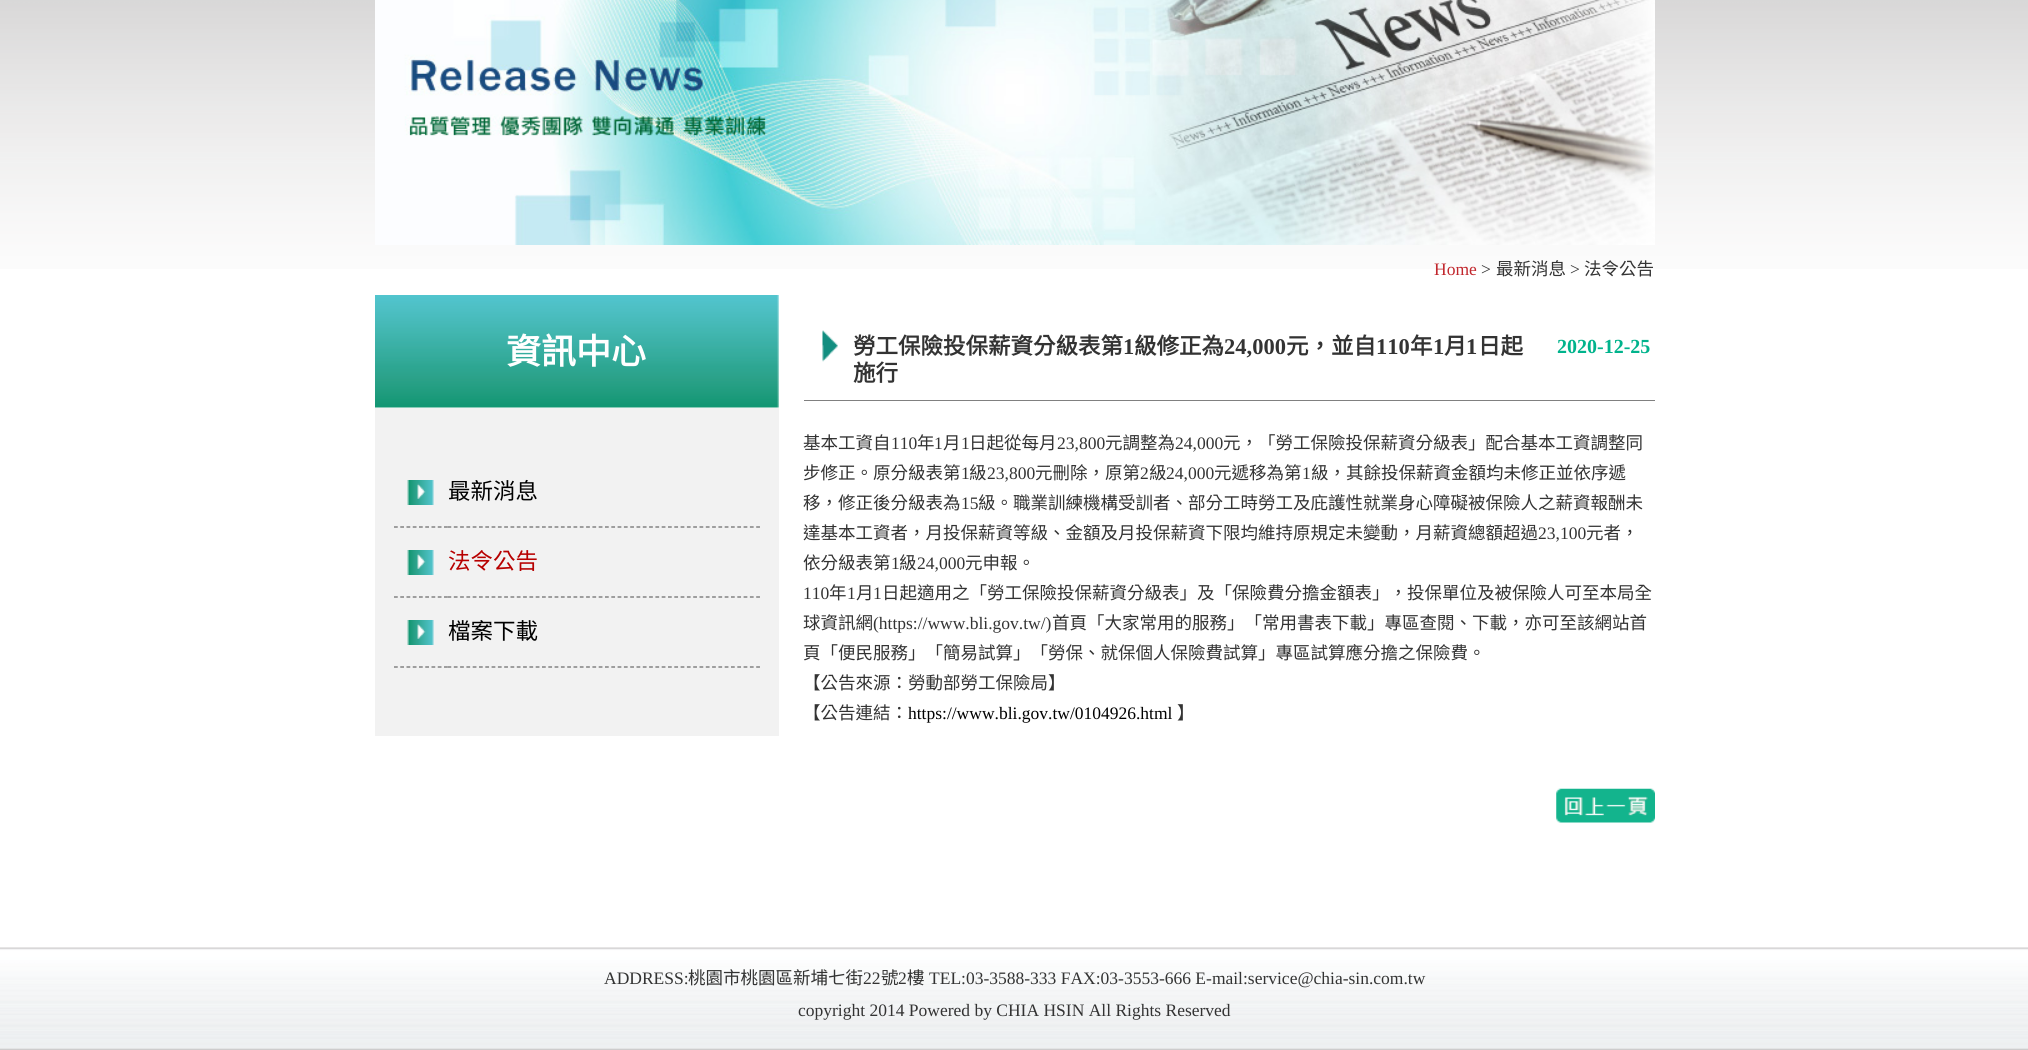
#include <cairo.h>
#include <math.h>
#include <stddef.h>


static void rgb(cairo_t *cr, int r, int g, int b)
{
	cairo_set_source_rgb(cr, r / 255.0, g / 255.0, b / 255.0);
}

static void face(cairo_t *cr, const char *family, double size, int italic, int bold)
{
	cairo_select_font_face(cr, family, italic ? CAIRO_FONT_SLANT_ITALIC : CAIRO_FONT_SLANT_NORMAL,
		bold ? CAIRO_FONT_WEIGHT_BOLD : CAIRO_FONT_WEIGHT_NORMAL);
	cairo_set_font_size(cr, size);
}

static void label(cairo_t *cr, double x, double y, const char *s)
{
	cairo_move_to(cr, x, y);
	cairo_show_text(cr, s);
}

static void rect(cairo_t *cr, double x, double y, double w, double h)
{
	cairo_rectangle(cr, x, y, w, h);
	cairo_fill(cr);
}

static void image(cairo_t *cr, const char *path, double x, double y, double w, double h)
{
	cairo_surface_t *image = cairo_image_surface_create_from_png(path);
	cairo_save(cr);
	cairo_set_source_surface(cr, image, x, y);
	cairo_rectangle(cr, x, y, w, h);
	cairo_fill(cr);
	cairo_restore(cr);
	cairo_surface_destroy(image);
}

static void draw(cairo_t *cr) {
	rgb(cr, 255, 255, 255);
	cairo_paint(cr);
	image(cr, "image0.png", 0, 0, 2028, 269);
	image(cr, "image1.png", 375, 0, 1280, 245);
	face(cr, "Liberation Serif", 17.5, 0, 0);
	rgb(cr, 193, 39, 45);
	label(cr, 1434, 275, "Home");
	rgb(cr, 51, 51, 51);
	label(cr, 1481, 275, ">");
	face(cr, "Noto Sans CJK TC", 17.5, 0, 0);
	label(cr, 1496, 275, "最新消息");
	face(cr, "Liberation Serif", 17.5, 0, 0);
	label(cr, 1570, 275, ">");
	face(cr, "Noto Sans CJK TC", 17.5, 0, 0);
	label(cr, 1584, 275, "法令公告");
	image(cr, "image2.png", 375, 295, 404, 113);
	face(cr, "Noto Sans CJK TC", 35, 0, 1);
	rgb(cr, 255, 255, 255);
	label(cr, 506, 364, "資訊中心");
	rgb(cr, 242, 242, 242);
	rect(cr, 375, 408, 404, 328);
	cairo_new_path(cr);
	cairo_move_to(cr, 394, 527);
	cairo_line_to(cr, 447.5, 527);
	rgb(cr, 102, 102, 102);
	cairo_set_line_width(cr, 1.2);
	cairo_set_dash(cr, (double[]){3.75, 2.5}, 2, 0);
	cairo_stroke(cr);
	image(cr, "image3.png", 407, 480, 27, 25);
	cairo_new_path(cr);
	cairo_move_to(cr, 447.5, 527);
	cairo_line_to(cr, 760, 527);
	cairo_set_dash(cr, (double[]){3.75, 2.55}, 2, 0);
	cairo_stroke(cr);
	face(cr, "Noto Sans CJK TC", 22.5, 0, 0);
	rgb(cr, 0, 0, 0);
	label(cr, 448, 499, "最新消息");
	cairo_new_path(cr);
	cairo_move_to(cr, 394, 597);
	cairo_line_to(cr, 447.5, 597);
	rgb(cr, 102, 102, 102);
	cairo_set_dash(cr, (double[]){3.75, 2.5}, 2, 0);
	cairo_stroke(cr);
	image(cr, "image3.png", 407, 550, 27, 25);
	cairo_new_path(cr);
	cairo_move_to(cr, 447.5, 597);
	cairo_line_to(cr, 760, 597);
	cairo_set_dash(cr, (double[]){3.75, 2.55}, 2, 0);
	cairo_stroke(cr);
	rgb(cr, 183, 0, 0);
	label(cr, 448, 569, "法令公告");
	cairo_new_path(cr);
	cairo_move_to(cr, 394, 667);
	cairo_line_to(cr, 447.5, 667);
	rgb(cr, 102, 102, 102);
	cairo_set_dash(cr, (double[]){3.75, 2.5}, 2, 0);
	cairo_stroke(cr);
	image(cr, "image3.png", 407, 620, 27, 25);
	cairo_new_path(cr);
	cairo_move_to(cr, 447.5, 667);
	cairo_line_to(cr, 760, 667);
	cairo_set_dash(cr, (double[]){3.75, 2.55}, 2, 0);
	cairo_stroke(cr);
	rgb(cr, 0, 0, 0);
	label(cr, 448, 639, "檔案下載");
	image(cr, "image4.png", 822, 330, 16, 32);
	rgb(cr, 128, 128, 128);
	rect(cr, 804, 400, 851, 1);
	face(cr, "Noto Sans CJK TC", 22.5, 0, 1);
	rgb(cr, 51, 51, 51);
	label(cr, 853, 354, "勞工保險投保薪資分級表第");
	face(cr, "Liberation Serif", 22.5, 0, 1);
	label(cr, 1123, 354, "1");
	face(cr, "Noto Sans CJK TC", 22.5, 0, 1);
	label(cr, 1134, 354, "級修正為");
	face(cr, "Liberation Serif", 22.5, 0, 1);
	label(cr, 1224, 354, "24,000");
	face(cr, "Noto Sans CJK TC", 22.5, 0, 1);
	label(cr, 1286, 354, "元，並自");
	face(cr, "Liberation Serif", 22.5, 0, 1);
	label(cr, 1376, 354, "110");
	face(cr, "Noto Sans CJK TC", 22.5, 0, 1);
	label(cr, 1410, 354, "年");
	face(cr, "Liberation Serif", 22.5, 0, 1);
	label(cr, 1433, 354, "1");
	face(cr, "Noto Sans CJK TC", 22.5, 0, 1);
	label(cr, 1444, 354, "月");
	face(cr, "Liberation Serif", 22.5, 0, 1);
	label(cr, 1466, 354, "1");
	face(cr, "Noto Sans CJK TC", 22.5, 0, 1);
	label(cr, 1478, 354, "日起");
	label(cr, 853, 381, "施行");
	face(cr, "Liberation Serif", 20, 0, 1);
	rgb(cr, 0, 179, 140);
	label(cr, 1557, 353, "2020-12-25");
	face(cr, "Noto Sans CJK TC", 17.5, 0, 0);
	rgb(cr, 51, 51, 51);
	label(cr, 803, 449, "基本工資自");
	face(cr, "Liberation Serif", 17.5, 0, 0);
	label(cr, 891, 449, "110");
	face(cr, "Noto Sans CJK TC", 17.5, 0, 0);
	label(cr, 917, 449, "年");
	face(cr, "Liberation Serif", 17.5, 0, 0);
	label(cr, 934, 449, "1");
	face(cr, "Noto Sans CJK TC", 17.5, 0, 0);
	label(cr, 943, 449, "月");
	face(cr, "Liberation Serif", 17.5, 0, 0);
	label(cr, 961, 449, "1");
	face(cr, "Noto Sans CJK TC", 17.5, 0, 0);
	label(cr, 969, 449, "日起從每月");
	face(cr, "Liberation Serif", 17.5, 0, 0);
	label(cr, 1057, 449, "23,800");
	face(cr, "Noto Sans CJK TC", 17.5, 0, 0);
	label(cr, 1105, 449, "元調整為");
	face(cr, "Liberation Serif", 17.5, 0, 0);
	label(cr, 1175, 449, "24,000");
	face(cr, "Noto Sans CJK TC", 17.5, 0, 0);
	label(cr, 1223, 449, "元，「勞工保險投保薪資分級表」配合基本工資調整同");
	label(cr, 803, 479, "步修正。原分級表第");
	face(cr, "Liberation Serif", 17.5, 0, 0);
	label(cr, 961, 479, "1");
	face(cr, "Noto Sans CJK TC", 17.5, 0, 0);
	label(cr, 969, 479, "級");
	face(cr, "Liberation Serif", 17.5, 0, 0);
	label(cr, 987, 479, "23,800");
	face(cr, "Noto Sans CJK TC", 17.5, 0, 0);
	label(cr, 1035, 479, "元刪除，原第");
	face(cr, "Liberation Serif", 17.5, 0, 0);
	label(cr, 1140, 479, "2");
	face(cr, "Noto Sans CJK TC", 17.5, 0, 0);
	label(cr, 1149, 479, "級");
	face(cr, "Liberation Serif", 17.5, 0, 0);
	label(cr, 1166, 479, "24,000");
	face(cr, "Noto Sans CJK TC", 17.5, 0, 0);
	label(cr, 1214, 479, "元遞移為第");
	face(cr, "Liberation Serif", 17.5, 0, 0);
	label(cr, 1302, 479, "1");
	face(cr, "Noto Sans CJK TC", 17.5, 0, 0);
	label(cr, 1311, 479, "級，其餘投保薪資金額均未修正並依序遞");
	label(cr, 803, 509, "移，修正後分級表為");
	face(cr, "Liberation Serif", 17.5, 0, 0);
	label(cr, 961, 509, "15");
	face(cr, "Noto Sans CJK TC", 17.5, 0, 0);
	label(cr, 978, 509, "級。職業訓練機構受訓者、部分工時勞工及庇護性就業身心障礙被保險人之薪資報酬未");
	label(cr, 803, 539, "達基本工資者，月投保薪資等級、金額及月投保薪資下限均維持原規定未變動，月薪資總額超過");
	face(cr, "Liberation Serif", 17.5, 0, 0);
	label(cr, 1538, 539, "23,100");
	face(cr, "Noto Sans CJK TC", 17.5, 0, 0);
	label(cr, 1586, 539, "元者，");
	label(cr, 803, 569, "依分級表第");
	face(cr, "Liberation Serif", 17.5, 0, 0);
	label(cr, 891, 569, "1");
	face(cr, "Noto Sans CJK TC", 17.5, 0, 0);
	label(cr, 899, 569, "級");
	face(cr, "Liberation Serif", 17.5, 0, 0);
	label(cr, 917, 569, "24,000");
	face(cr, "Noto Sans CJK TC", 17.5, 0, 0);
	label(cr, 965, 569, "元申報。");
	face(cr, "Liberation Serif", 17.5, 0, 0);
	label(cr, 803, 599, "110");
	face(cr, "Noto Sans CJK TC", 17.5, 0, 0);
	label(cr, 829, 599, "年");
	face(cr, "Liberation Serif", 17.5, 0, 0);
	label(cr, 847, 599, "1");
	face(cr, "Noto Sans CJK TC", 17.5, 0, 0);
	label(cr, 856, 599, "月");
	face(cr, "Liberation Serif", 17.5, 0, 0);
	label(cr, 873, 599, "1");
	face(cr, "Noto Sans CJK TC", 17.5, 0, 0);
	label(cr, 882, 599, "日起適用之「勞工保險投保薪資分級表」及「保險費分擔金額表」，投保單位及被保險人可至本局全");
	label(cr, 803, 629, "球資訊網");
	face(cr, "Liberation Serif", 17.5, 0, 0);
	label(cr, 873, 629, "(https://www.bli.gov.tw/)");
	face(cr, "Noto Sans CJK TC", 17.5, 0, 0);
	label(cr, 1052, 629, "首頁「大家常用的服務」「常用書表下載」專區查閱、下載，亦可至該網站首");
	label(cr, 803, 659, "頁「便民服務」「簡易試算」「勞保、就保個人保險費試算」專區試算應分擔之保險費。");
	label(cr, 803, 689, "【公告來源：勞動部勞工保險局】");
	label(cr, 803, 719, "【公告連結：");
	face(cr, "Liberation Serif", 17.5, 0, 0);
	rgb(cr, 0, 0, 0);
	label(cr, 908, 719, "https://www.bli.gov.tw/0104926.html");
	face(cr, "Noto Sans CJK TC", 17.5, 0, 0);
	rgb(cr, 51, 51, 51);
	label(cr, 1177, 719, "】");
	image(cr, "image5.png", 1556, 788, 99, 35);
	image(cr, "image6.png", 0, 947, 2028, 103);
	face(cr, "Liberation Serif", 17.5, 0, 0);
	label(cr, 604, 984, "ADDRESS:");
	face(cr, "Noto Sans CJK TC", 17.5, 0, 0);
	label(cr, 688, 984, "桃園市桃園區新埔七街");
	face(cr, "Liberation Serif", 17.5, 0, 0);
	label(cr, 863, 984, "22");
	face(cr, "Noto Sans CJK TC", 17.5, 0, 0);
	label(cr, 881, 984, "號");
	face(cr, "Liberation Serif", 17.5, 0, 0);
	label(cr, 898, 984, "2");
	face(cr, "Noto Sans CJK TC", 17.5, 0, 0);
	label(cr, 907, 984, "樓");
	face(cr, "Liberation Serif", 17.5, 0, 0);
	label(cr, 929, 984, "TEL:03-3588-333 FAX:03-3553-666 E-mail:service@chia-sin.com.tw");
	label(cr, 798, 1016, "copyright 2014 Powered by CHIA HSIN All Rights Reserved");
}

int main(void) {
	cairo_surface_t *surface = cairo_image_surface_create(CAIRO_FORMAT_RGB24, 2028, 1050);
	cairo_t *cr = cairo_create(surface);
	cairo_font_options_t *options = cairo_font_options_create();
	cairo_font_options_set_hint_metrics(options, CAIRO_HINT_METRICS_OFF);
	cairo_font_options_set_hint_style(options, CAIRO_HINT_STYLE_NONE);
	cairo_set_font_options(cr, options);
	cairo_set_miter_limit(cr, 4);
	draw(cr);
	cairo_surface_write_to_png(surface, "render.png");
	cairo_font_options_destroy(options);
	cairo_destroy(cr);
	cairo_surface_destroy(surface);
	return 0;
}
